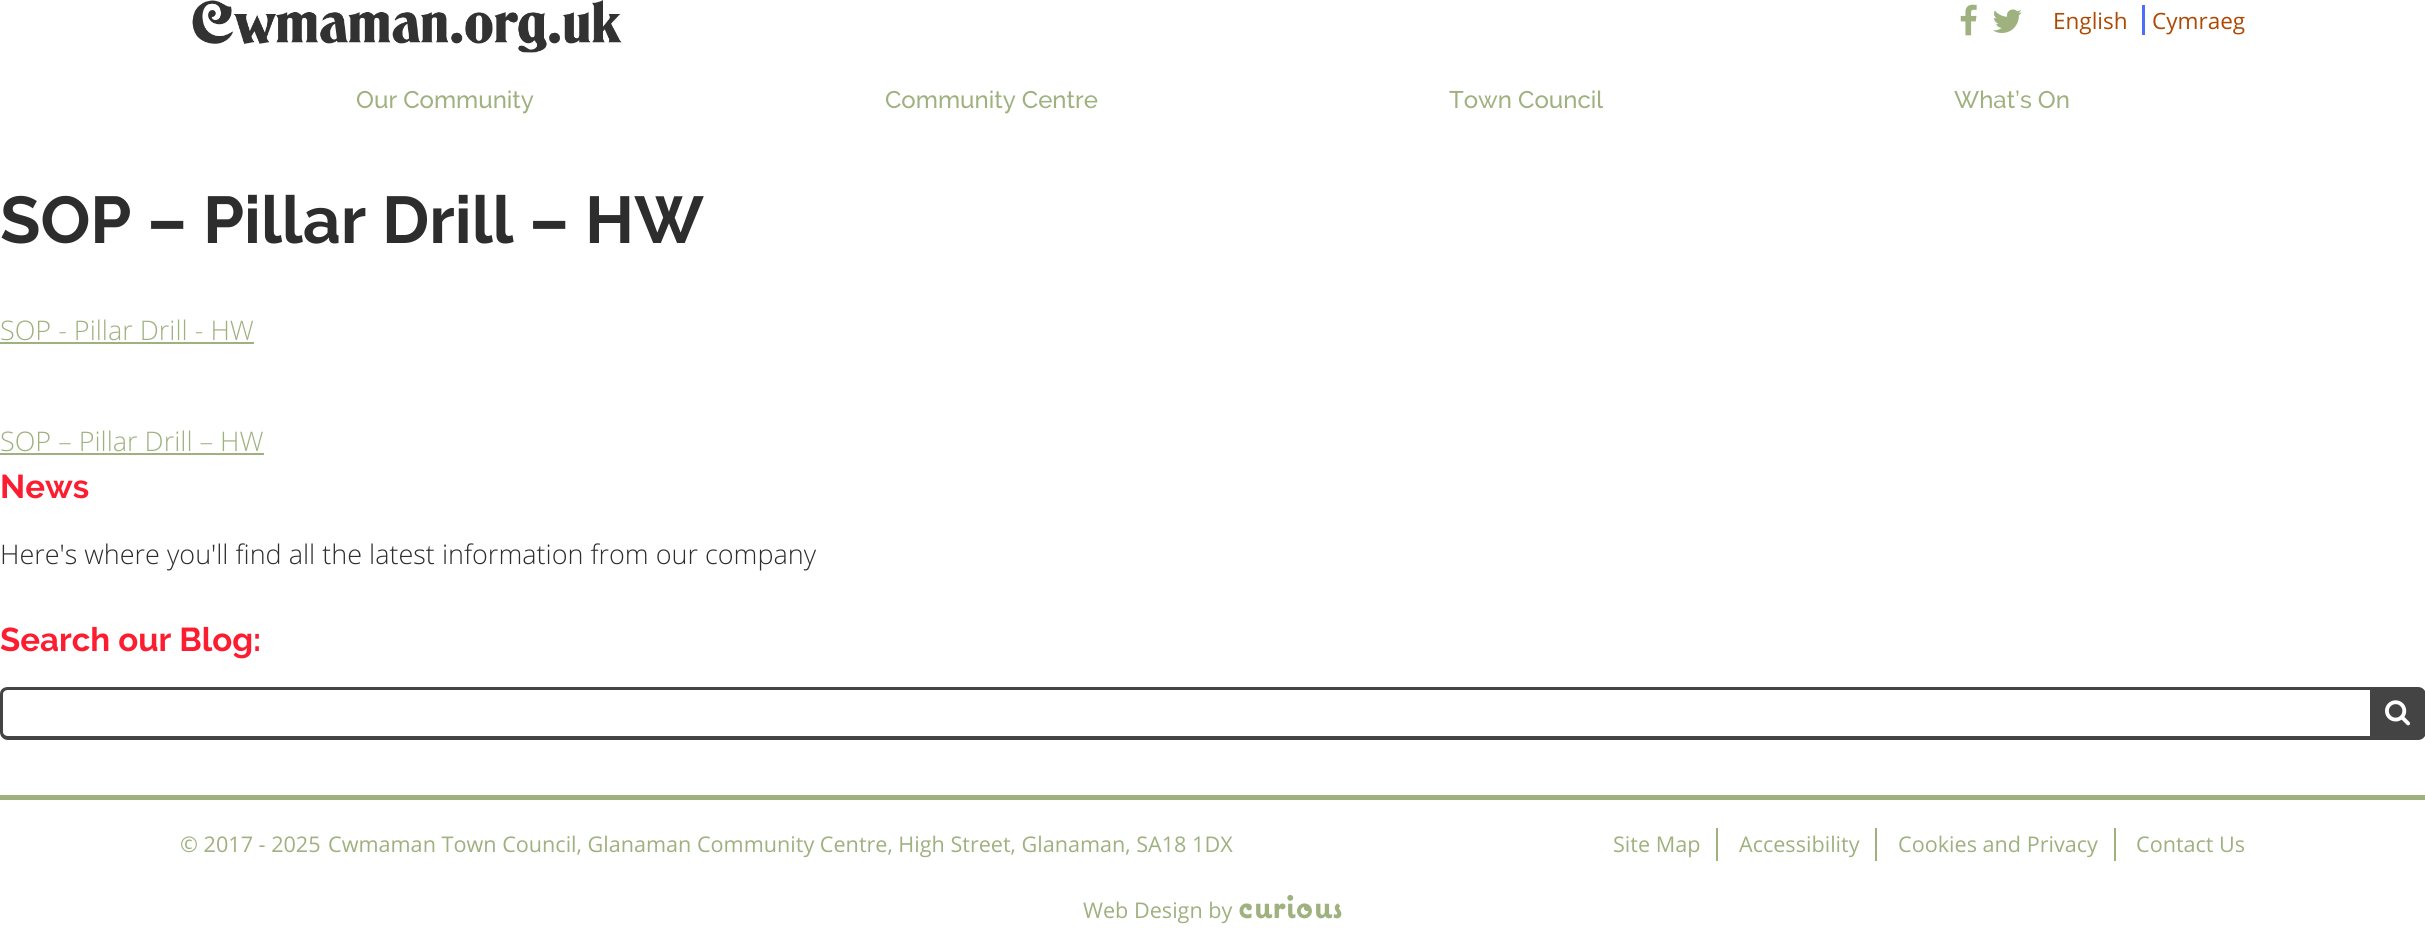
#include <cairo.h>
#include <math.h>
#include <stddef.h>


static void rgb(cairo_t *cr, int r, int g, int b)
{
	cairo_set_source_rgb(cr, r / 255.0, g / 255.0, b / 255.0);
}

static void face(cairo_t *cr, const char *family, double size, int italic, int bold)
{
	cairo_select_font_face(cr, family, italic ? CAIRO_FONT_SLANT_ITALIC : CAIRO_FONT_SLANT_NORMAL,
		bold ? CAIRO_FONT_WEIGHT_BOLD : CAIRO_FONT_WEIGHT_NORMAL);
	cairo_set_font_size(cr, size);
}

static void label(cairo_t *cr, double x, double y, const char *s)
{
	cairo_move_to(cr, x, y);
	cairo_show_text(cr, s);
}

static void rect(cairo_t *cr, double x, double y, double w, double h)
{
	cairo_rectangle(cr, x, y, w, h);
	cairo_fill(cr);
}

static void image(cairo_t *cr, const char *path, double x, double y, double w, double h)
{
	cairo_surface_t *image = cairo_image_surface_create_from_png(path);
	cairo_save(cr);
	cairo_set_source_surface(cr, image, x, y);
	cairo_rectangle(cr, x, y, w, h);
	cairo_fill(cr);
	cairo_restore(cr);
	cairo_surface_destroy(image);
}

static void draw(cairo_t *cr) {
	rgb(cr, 255, 255, 255);
	cairo_paint(cr);
	image(cr, "image0.png", 192, 0, 430, 53);
	image(cr, "image1.png", 1960, 4, 17, 32);
	image(cr, "image2.png", 1993, 9, 29, 24);
	face(cr, "Open Sans", 22.5, 0, 0);
	rgb(cr, 175, 72, 1);
	label(cr, 2053, 29, "English");
	rgb(cr, 77, 110, 252);
	rect(cr, 2142, 5, 3, 30);
	rgb(cr, 175, 72, 1);
	label(cr, 2152, 29, "Cymraeg");
	face(cr, "Raleway Medium", 24, 0, 0);
	rgb(cr, 158, 177, 127);
	label(cr, 356, 108, "Our Community");
	label(cr, 885, 108, "Community Centre");
	label(cr, 1449, 108, "Town Council");
	label(cr, 1954, 108, "What’s On");
	face(cr, "Raleway", 66, 0, 1);
	rgb(cr, 45, 45, 45);
	label(cr, 0, 243, "SOP – Pillar Drill – HW");
	face(cr, "Open Sans Light", 27, 0, 0);
	rgb(cr, 158, 177, 127);
	label(cr, 0, 340, "SOP - Pillar Drill - HW");
	rect(cr, 0, 342, 254, 2);
	label(cr, 0, 451, "SOP – Pillar Drill – HW");
	rect(cr, 0, 453, 264, 2);
	face(cr, "Raleway", 33, 0, 1);
	rgb(cr, 252, 29, 48);
	label(cr, 0, 498, "News");
	face(cr, "Open Sans Light", 27, 0, 0);
	rgb(cr, 45, 45, 45);
	label(cr, 0, 564, "Here's where you'll find all the latest information from our company");
	face(cr, "Raleway", 33, 0, 1);
	rgb(cr, 252, 29, 48);
	label(cr, 0, 651, "Search our Blog:");
	rgb(cr, 68, 68, 68);
	cairo_set_fill_rule(cr, CAIRO_FILL_RULE_EVEN_ODD);
	cairo_new_path(cr);
	cairo_move_to(cr, 8, 687);
	cairo_line_to(cr, 2370, 687);
	cairo_line_to(cr, 2370, 740);
	cairo_line_to(cr, 8, 740);
	cairo_curve_to(cr, 3, 740, 0, 736, 0, 732);
	cairo_line_to(cr, 0, 694);
	cairo_curve_to(cr, 0, 690, 3, 687, 8, 687);
	cairo_close_path(cr);
	cairo_move_to(cr, 8, 690);
	cairo_line_to(cr, 2370, 690);
	cairo_line_to(cr, 2370, 736);
	cairo_line_to(cr, 8, 736);
	cairo_curve_to(cr, 5, 736, 3, 734, 3, 732);
	cairo_line_to(cr, 3, 694);
	cairo_curve_to(cr, 3, 692, 5, 690, 8, 690);
	cairo_close_path(cr);
	cairo_fill(cr);
	cairo_new_path(cr);
	cairo_move_to(cr, 2370, 687);
	cairo_line_to(cr, 2418, 687);
	cairo_curve_to(cr, 2422.5, 687, 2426, 690.5, 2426, 695);
	cairo_line_to(cr, 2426, 732);
	cairo_curve_to(cr, 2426, 736.5, 2422.5, 740, 2418, 740);
	cairo_line_to(cr, 2370, 740);
	cairo_close_path(cr);
	cairo_fill(cr);
	image(cr, "image3.png", 2385, 700, 26, 26);
	rgb(cr, 158, 177, 127);
	rect(cr, 0, 795, 2425, 5);
	face(cr, "Open Sans", 21.6, 0, 0);
	label(cr, 180, 852, "© 2017 - 2025");
	label(cr, 328, 852, "Cwmaman Town Council, Glanaman Community Centre, High Street, Glanaman, SA18 1DX");
	rect(cr, 1716, 828, 2, 33);
	label(cr, 1613, 852, "Site Map");
	rect(cr, 1875, 828, 2, 33);
	label(cr, 1739, 852, "Accessibility");
	rect(cr, 2114, 828, 2, 33);
	label(cr, 1898, 852, "Cookies and Privacy");
	label(cr, 2136, 852, "Contact Us");
	label(cr, 1083, 918, "Web Design by");
	face(cr, "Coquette", 37.5, 0, 1);
	label(cr, 1238, 918, "curious");
}

int main(void) {
	cairo_surface_t *surface = cairo_image_surface_create(CAIRO_FORMAT_RGB24, 2425, 931);
	cairo_t *cr = cairo_create(surface);
	cairo_font_options_t *options = cairo_font_options_create();
	cairo_font_options_set_hint_metrics(options, CAIRO_HINT_METRICS_OFF);
	cairo_font_options_set_hint_style(options, CAIRO_HINT_STYLE_NONE);
	cairo_set_font_options(cr, options);
	cairo_set_miter_limit(cr, 4);
	draw(cr);
	cairo_surface_write_to_png(surface, "render.png");
	cairo_font_options_destroy(options);
	cairo_destroy(cr);
	cairo_surface_destroy(surface);
	return 0;
}
